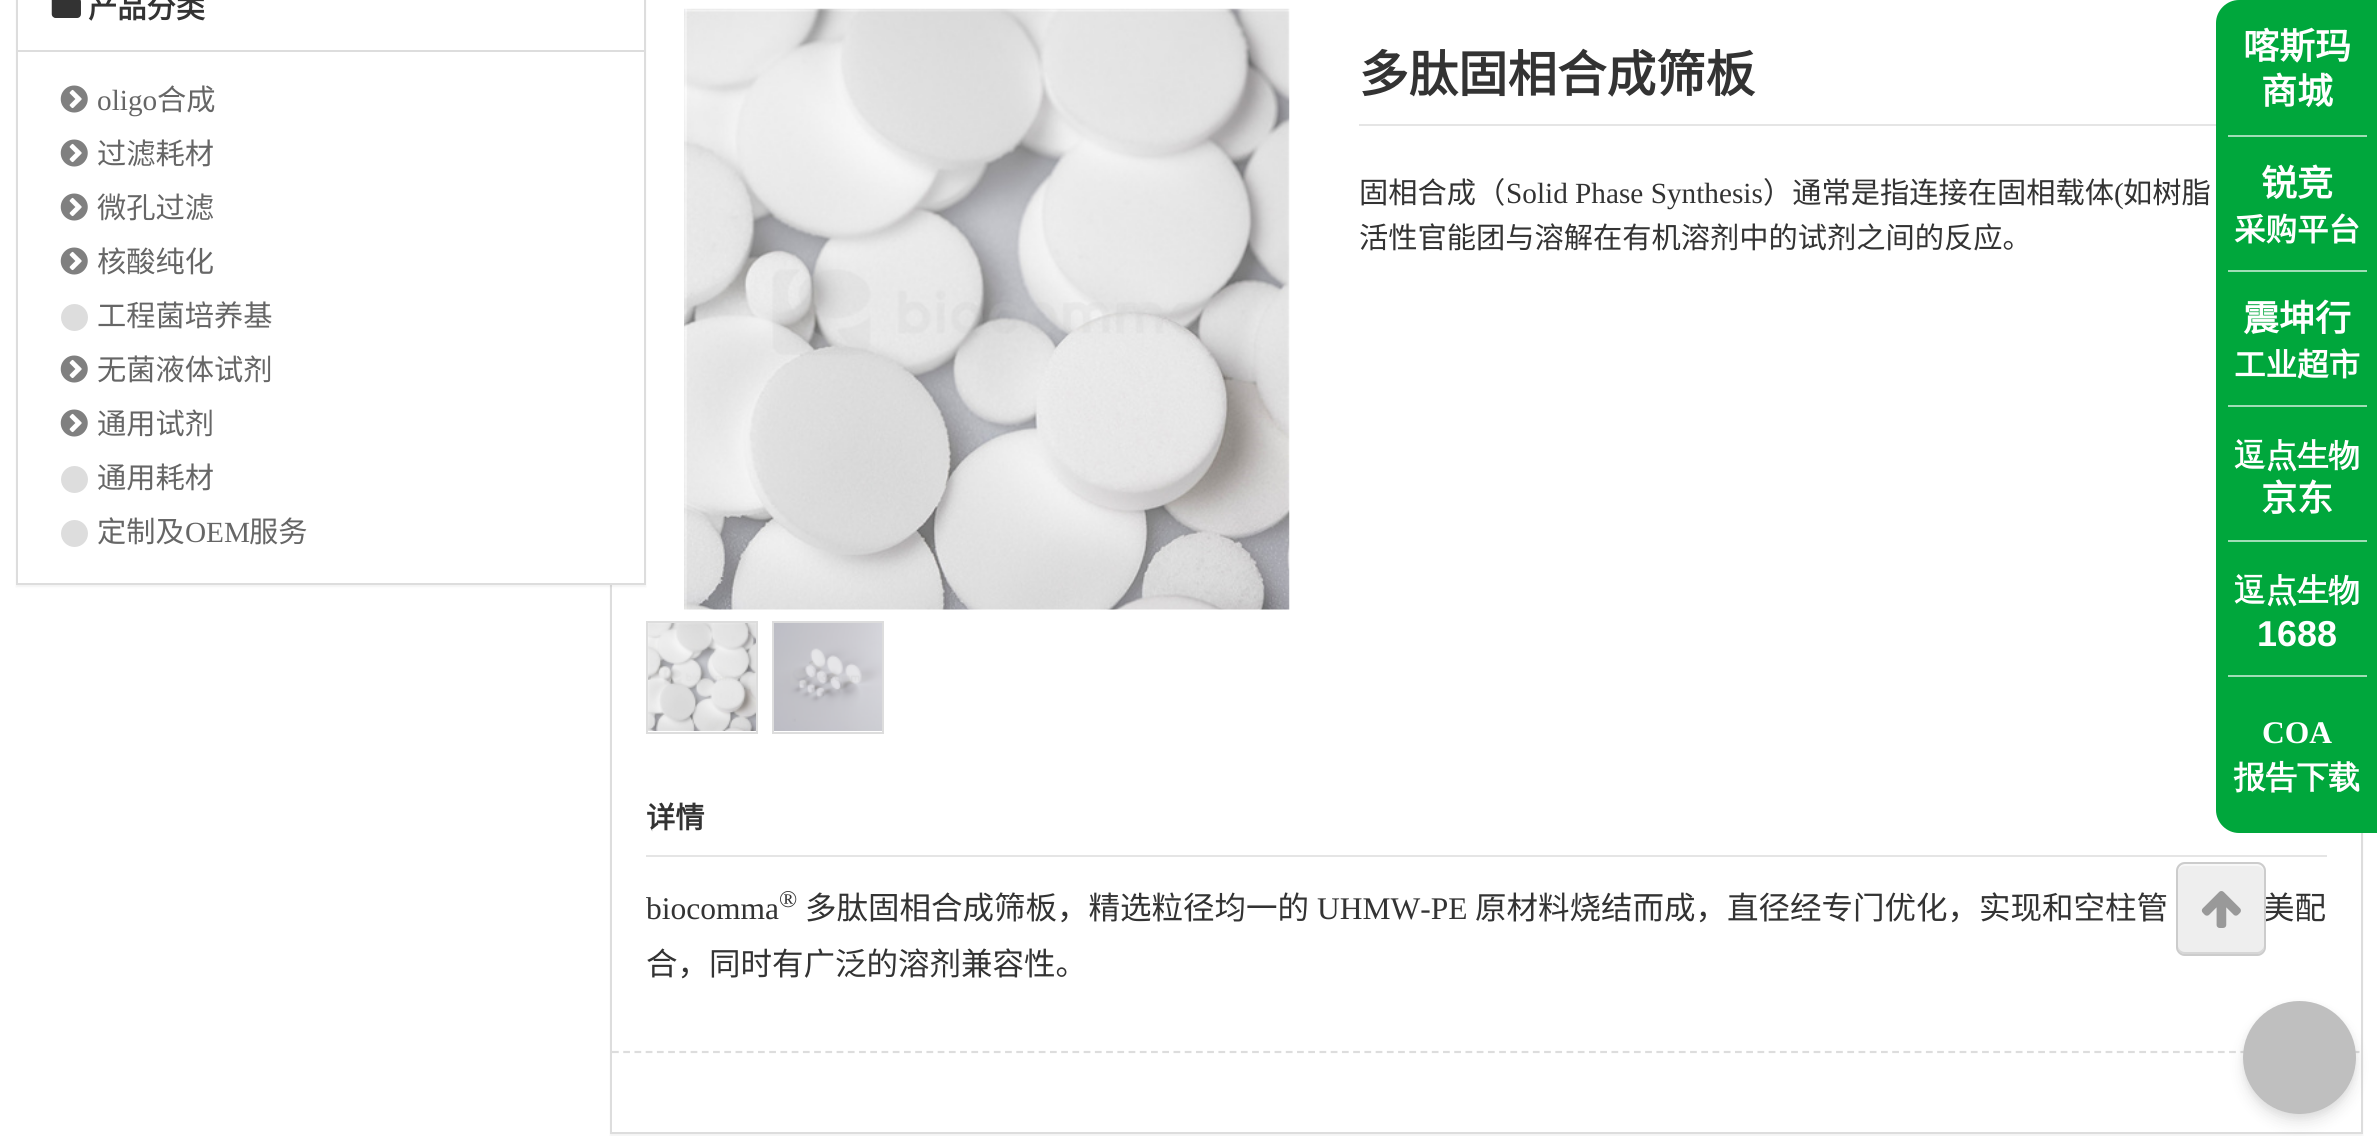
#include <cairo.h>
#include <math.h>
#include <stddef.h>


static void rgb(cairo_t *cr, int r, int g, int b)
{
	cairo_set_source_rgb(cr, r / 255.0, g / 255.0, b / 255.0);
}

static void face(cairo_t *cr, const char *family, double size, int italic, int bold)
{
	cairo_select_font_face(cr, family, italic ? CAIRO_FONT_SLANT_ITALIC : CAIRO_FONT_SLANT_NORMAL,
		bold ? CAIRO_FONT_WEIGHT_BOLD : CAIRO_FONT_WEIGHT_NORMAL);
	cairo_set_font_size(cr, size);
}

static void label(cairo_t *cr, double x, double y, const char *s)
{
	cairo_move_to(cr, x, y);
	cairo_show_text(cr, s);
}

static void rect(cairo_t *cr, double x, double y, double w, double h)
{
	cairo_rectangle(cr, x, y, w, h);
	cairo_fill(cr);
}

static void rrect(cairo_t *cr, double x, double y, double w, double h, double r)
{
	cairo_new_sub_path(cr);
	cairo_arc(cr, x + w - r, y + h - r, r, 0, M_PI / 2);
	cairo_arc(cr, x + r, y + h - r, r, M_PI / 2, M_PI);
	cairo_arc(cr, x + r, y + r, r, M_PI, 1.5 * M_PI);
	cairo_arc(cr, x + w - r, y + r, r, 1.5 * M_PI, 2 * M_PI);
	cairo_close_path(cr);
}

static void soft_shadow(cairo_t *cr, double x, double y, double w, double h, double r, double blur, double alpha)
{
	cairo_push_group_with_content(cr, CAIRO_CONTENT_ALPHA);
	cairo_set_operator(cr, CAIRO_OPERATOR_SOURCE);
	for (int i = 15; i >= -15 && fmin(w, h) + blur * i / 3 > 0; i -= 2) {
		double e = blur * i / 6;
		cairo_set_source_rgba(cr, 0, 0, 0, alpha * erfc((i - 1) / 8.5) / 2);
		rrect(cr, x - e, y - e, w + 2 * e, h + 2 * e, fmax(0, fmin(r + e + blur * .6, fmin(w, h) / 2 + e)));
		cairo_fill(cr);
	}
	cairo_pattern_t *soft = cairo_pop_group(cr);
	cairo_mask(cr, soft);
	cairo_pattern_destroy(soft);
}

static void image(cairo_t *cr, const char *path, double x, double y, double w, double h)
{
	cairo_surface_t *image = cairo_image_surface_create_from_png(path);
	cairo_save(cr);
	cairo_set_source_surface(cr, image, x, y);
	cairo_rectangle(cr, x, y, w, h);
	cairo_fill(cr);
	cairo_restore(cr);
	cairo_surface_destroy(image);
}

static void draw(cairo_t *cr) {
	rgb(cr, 255, 255, 255);
	cairo_paint(cr);
	rgb(cr, 0, 0, 0);
	soft_shadow(cr, 610, -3, 1753, 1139, 0, 1, 0.05);
	rgb(cr, 255, 255, 255);
	cairo_rectangle(cr, 611, -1, 1751, 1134);
	cairo_fill_preserve(cr);
	rgb(cr, 221, 221, 221);
	cairo_stroke(cr);
	rgb(cr, 0, 0, 0);
	soft_shadow(cr, 16, -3, 630, 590, 0, 1, 0.05);
	rgb(cr, 255, 255, 255);
	cairo_rectangle(cr, 17, -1, 628, 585);
	cairo_fill_preserve(cr);
	rgb(cr, 221, 221, 221);
	cairo_stroke(cr);
	rect(cr, 18, 50, 626, 2);
	image(cr, "image0.png", 51, 0, 30, 18);
	face(cr, "Noto Sans CJK SC", 29.25, 0, 1);
	rgb(cr, 51, 51, 51);
	label(cr, 88, 18, "产品分类");
	image(cr, "image1.png", 60, 85, 28, 28);
	face(cr, "Liberation Serif", 29.25, 0, 0);
	rgb(cr, 102, 102, 102);
	label(cr, 97, 110, "oligo");
	face(cr, "Noto Sans CJK SC", 29.25, 0, 0);
	label(cr, 157, 110, "合成");
	image(cr, "image1.png", 60, 139, 28, 28);
	label(cr, 97, 164, "过滤耗材");
	image(cr, "image1.png", 60, 193, 28, 28);
	label(cr, 97, 218, "微孔过滤");
	image(cr, "image1.png", 60, 247, 28, 28);
	label(cr, 97, 272, "核酸纯化");
	rgb(cr, 221, 221, 221);
	cairo_new_path(cr);
	cairo_arc(cr, 74.5, 317.5, 11, 0, 2 * M_PI);
	cairo_fill_preserve(cr);
	cairo_set_line_width(cr, 5);
	cairo_stroke(cr);
	rgb(cr, 102, 102, 102);
	label(cr, 97, 326, "工程菌培养基");
	image(cr, "image1.png", 60, 355, 28, 28);
	label(cr, 97, 380, "无菌液体试剂");
	image(cr, "image1.png", 60, 409, 28, 28);
	label(cr, 97, 434, "通用试剂");
	rgb(cr, 221, 221, 221);
	cairo_new_path(cr);
	cairo_arc(cr, 74.5, 479.5, 11, 0, 2 * M_PI);
	cairo_fill_preserve(cr);
	cairo_stroke(cr);
	rgb(cr, 102, 102, 102);
	label(cr, 97, 488, "通用耗材");
	rgb(cr, 221, 221, 221);
	cairo_new_path(cr);
	cairo_arc(cr, 74.5, 533.5, 11, 0, 2 * M_PI);
	cairo_fill_preserve(cr);
	cairo_stroke(cr);
	rgb(cr, 102, 102, 102);
	label(cr, 97, 542, "定制及");
	face(cr, "Liberation Serif", 29.25, 0, 0);
	label(cr, 185, 542, "OEM");
	face(cr, "Noto Sans CJK SC", 29.25, 0, 0);
	label(cr, 249, 542, "服务");
	image(cr, "image2.png", 684, 8, 606, 602);
	cairo_rectangle(cr, 647, 622, 110, 111);
	rgb(cr, 221, 221, 221);
	cairo_set_line_width(cr, 2);
	cairo_stroke(cr);
	image(cr, "image3.png", 648, 623, 108, 108);
	cairo_rectangle(cr, 773, 622, 110, 111);
	cairo_stroke(cr);
	image(cr, "image4.png", 774, 623, 108, 108);
	rgb(cr, 229, 229, 229);
	rect(cr, 1359, 124, 857, 2);
	face(cr, "Noto Sans CJK SC", 49.5, 0, 1);
	rgb(cr, 51, 51, 51);
	label(cr, 1359, 92, "多肽固相合成筛板");
	face(cr, "Noto Sans CJK SC", 29.25, 0, 0);
	label(cr, 1359, 203, "固相合成（");
	face(cr, "Liberation Serif", 29.25, 0, 0);
	label(cr, 1506, 203, "Solid Phase Synthesis");
	face(cr, "Noto Sans CJK SC", 29.25, 0, 0);
	label(cr, 1763, 203, "）通常是指连接在固相载体");
	face(cr, "Liberation Serif", 29.25, 0, 0);
	label(cr, 2114, 203, "(");
	face(cr, "Noto Sans CJK SC", 29.25, 0, 0);
	label(cr, 2123, 203, "如树脂");
	label(cr, 1359, 248, "活性官能团与溶解在有机溶剂中的试剂之间的反应。");
	rgb(cr, 229, 229, 229);
	rect(cr, 646, 855, 1681, 2);
	face(cr, "Noto Sans CJK SC", 29.25, 0, 1);
	rgb(cr, 51, 51, 51);
	label(cr, 646, 828, "详情");
	face(cr, "Liberation Serif", 31.5, 0, 0);
	label(cr, 646, 919, "biocomma");
	face(cr, "Liberation Serif", 24, 0, 0);
	label(cr, 779, 907, "®");
	face(cr, "Noto Sans CJK SC", 31.5, 0, 0);
	label(cr, 805, 919, "多肽固相合成筛板，精选粒径均一的");
	face(cr, "Liberation Serif", 31.5, 0, 0);
	label(cr, 1317, 919, "UHMW-PE");
	face(cr, "Noto Sans CJK SC", 31.5, 0, 0);
	label(cr, 1475, 919, "原材料烧结而成，直径经专门优化，实现和空柱管");
	label(cr, 2263, 919, "美配");
	label(cr, 646, 975, "合，同时有广泛的溶剂兼容性。");
	cairo_new_path(cr);
	cairo_move_to(cr, 612, 1052);
	cairo_line_to(cr, 2360, 1052);
	rgb(cr, 221, 221, 221);
	cairo_set_line_width(cr, 2.2);
	cairo_set_dash(cr, (double[]){6.75, 4.48}, 2, 0);
	cairo_stroke(cr);
	rgb(cr, 0, 167, 60);
	cairo_new_path(cr);
	cairo_move_to(cr, 2239, 0);
	cairo_line_to(cr, 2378, 0);
	cairo_line_to(cr, 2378, 833);
	cairo_line_to(cr, 2239, 833);
	cairo_curve_to(cr, 2226.5, 833, 2216, 822.5, 2216, 810);
	cairo_line_to(cr, 2216, 23);
	cairo_curve_to(cr, 2216, 10.5, 2226.5, 0, 2239, 0);
	cairo_close_path(cr);
	cairo_fill(cr);
	face(cr, "Noto Sans CJK SC", 36, 0, 1);
	rgb(cr, 255, 255, 255);
	label(cr, 2243, 59, "喀斯玛");
	label(cr, 2261, 104, "商城");
	rgb(cr, 159, 222, 182);
	rect(cr, 2228, 135, 139, 2);
	rgb(cr, 255, 255, 255);
	label(cr, 2261, 196, "锐竞");
	face(cr, "Noto Sans CJK SC", 31.5, 0, 1);
	label(cr, 2234, 241, "采购平台");
	rgb(cr, 159, 222, 182);
	rect(cr, 2228, 270, 139, 2);
	face(cr, "Noto Sans CJK SC", 36, 0, 1);
	rgb(cr, 255, 255, 255);
	label(cr, 2243, 331, "震坤行");
	face(cr, "Noto Sans CJK SC", 31.5, 0, 1);
	label(cr, 2234, 376, "工业超市");
	rgb(cr, 159, 222, 182);
	rect(cr, 2228, 405, 139, 2);
	face(cr, "WenQuanYi Zen Hei", 31.5, 0, 1);
	rgb(cr, 255, 255, 255);
	label(cr, 2234, 466, "逗点生物");
	face(cr, "Noto Sans CJK SC", 36, 0, 1);
	label(cr, 2261, 511, "京东");
	rgb(cr, 159, 222, 182);
	rect(cr, 2228, 540, 139, 2);
	face(cr, "WenQuanYi Zen Hei", 31.5, 0, 1);
	rgb(cr, 255, 255, 255);
	label(cr, 2234, 601, "逗点生物");
	face(cr, "Liberation Sans", 36, 0, 1);
	label(cr, 2257, 646, "1688");
	rgb(cr, 159, 222, 182);
	rect(cr, 2228, 675, 139, 2);
	face(cr, "Liberation Serif", 31.5, 0, 1);
	rgb(cr, 255, 255, 255);
	label(cr, 2262, 743, "COA");
	face(cr, "WenQuanYi Zen Hei", 31.5, 0, 1);
	label(cr, 2234, 788, "报告下载");
	rgb(cr, 238, 238, 238);
	rrect(cr, 2176, 862, 90, 94, 9);
	cairo_fill(cr);
	rgb(cr, 214, 214, 214);
	cairo_new_path(cr);
	cairo_move_to(cr, 2178, 945);
	cairo_curve_to(cr, 2178, 957, 2188, 954, 2197, 954);
	cairo_line_to(cr, 2245, 954);
	cairo_curve_to(cr, 2254, 954, 2264, 957, 2264, 945);
	cairo_curve_to(cr, 2264, 949, 2260, 952, 2257, 952);
	cairo_line_to(cr, 2185, 952);
	cairo_curve_to(cr, 2181, 952, 2178, 949, 2178, 945);
	cairo_close_path(cr);
	cairo_fill(cr);
	rgb(cr, 247, 247, 247);
	cairo_new_path(cr);
	cairo_move_to(cr, 2185, 866);
	cairo_line_to(cr, 2257, 866);
	cairo_curve_to(cr, 2260, 866, 2264, 869, 2264, 873);
	cairo_curve_to(cr, 2264, 861, 2254, 864, 2245, 864);
	cairo_line_to(cr, 2197, 864);
	cairo_curve_to(cr, 2188, 864, 2178, 861, 2178, 873);
	cairo_curve_to(cr, 2178, 869, 2181, 866, 2185, 866);
	cairo_close_path(cr);
	cairo_fill(cr);
	rrect(cr, 2177, 863, 88, 92, 8);
	rgb(cr, 204, 204, 204);
	cairo_set_line_width(cr, 2);
	cairo_set_dash(cr, NULL, 0, 0);
	cairo_stroke(cr);
	image(cr, "image5.png", 2201, 891, 40, 37);
	rgb(cr, 0, 0, 0);
	soft_shadow(cr, 2243, 1004, 113, 112, 56, 3.5, 0.06);
	soft_shadow(cr, 2243, 1010, 113, 113, 56.5, 7, 0.1);
	rgb(cr, 255, 255, 255);
	cairo_arc(cr, 2299.5, 1057.5, 56.5, 0, 2 * M_PI);
	cairo_fill(cr);
	cairo_set_source_rgba(cr, 0, 0, 0, 0.25);
	cairo_arc(cr, 2299.5, 1057.5, 56.5, 0, 2 * M_PI);
	cairo_fill(cr);
}

int main(void) {
	cairo_surface_t *surface = cairo_image_surface_create(CAIRO_FORMAT_RGB24, 2377, 1136);
	cairo_t *cr = cairo_create(surface);
	cairo_font_options_t *options = cairo_font_options_create();
	cairo_font_options_set_hint_metrics(options, CAIRO_HINT_METRICS_OFF);
	cairo_font_options_set_hint_style(options, CAIRO_HINT_STYLE_NONE);
	cairo_set_font_options(cr, options);
	cairo_set_miter_limit(cr, 4);
	draw(cr);
	cairo_surface_write_to_png(surface, "render.png");
	cairo_font_options_destroy(options);
	cairo_destroy(cr);
	cairo_surface_destroy(surface);
	return 0;
}
